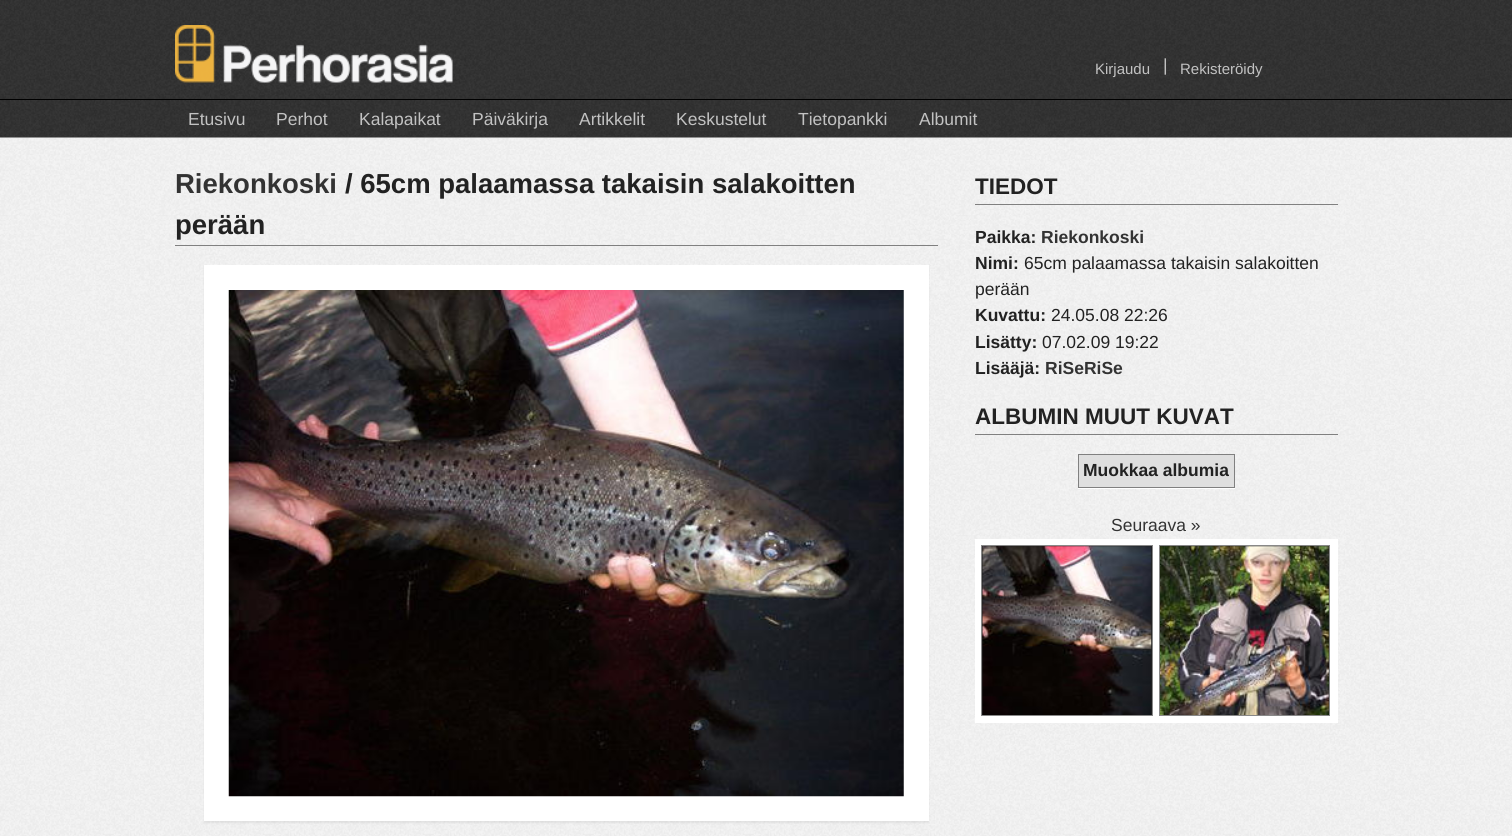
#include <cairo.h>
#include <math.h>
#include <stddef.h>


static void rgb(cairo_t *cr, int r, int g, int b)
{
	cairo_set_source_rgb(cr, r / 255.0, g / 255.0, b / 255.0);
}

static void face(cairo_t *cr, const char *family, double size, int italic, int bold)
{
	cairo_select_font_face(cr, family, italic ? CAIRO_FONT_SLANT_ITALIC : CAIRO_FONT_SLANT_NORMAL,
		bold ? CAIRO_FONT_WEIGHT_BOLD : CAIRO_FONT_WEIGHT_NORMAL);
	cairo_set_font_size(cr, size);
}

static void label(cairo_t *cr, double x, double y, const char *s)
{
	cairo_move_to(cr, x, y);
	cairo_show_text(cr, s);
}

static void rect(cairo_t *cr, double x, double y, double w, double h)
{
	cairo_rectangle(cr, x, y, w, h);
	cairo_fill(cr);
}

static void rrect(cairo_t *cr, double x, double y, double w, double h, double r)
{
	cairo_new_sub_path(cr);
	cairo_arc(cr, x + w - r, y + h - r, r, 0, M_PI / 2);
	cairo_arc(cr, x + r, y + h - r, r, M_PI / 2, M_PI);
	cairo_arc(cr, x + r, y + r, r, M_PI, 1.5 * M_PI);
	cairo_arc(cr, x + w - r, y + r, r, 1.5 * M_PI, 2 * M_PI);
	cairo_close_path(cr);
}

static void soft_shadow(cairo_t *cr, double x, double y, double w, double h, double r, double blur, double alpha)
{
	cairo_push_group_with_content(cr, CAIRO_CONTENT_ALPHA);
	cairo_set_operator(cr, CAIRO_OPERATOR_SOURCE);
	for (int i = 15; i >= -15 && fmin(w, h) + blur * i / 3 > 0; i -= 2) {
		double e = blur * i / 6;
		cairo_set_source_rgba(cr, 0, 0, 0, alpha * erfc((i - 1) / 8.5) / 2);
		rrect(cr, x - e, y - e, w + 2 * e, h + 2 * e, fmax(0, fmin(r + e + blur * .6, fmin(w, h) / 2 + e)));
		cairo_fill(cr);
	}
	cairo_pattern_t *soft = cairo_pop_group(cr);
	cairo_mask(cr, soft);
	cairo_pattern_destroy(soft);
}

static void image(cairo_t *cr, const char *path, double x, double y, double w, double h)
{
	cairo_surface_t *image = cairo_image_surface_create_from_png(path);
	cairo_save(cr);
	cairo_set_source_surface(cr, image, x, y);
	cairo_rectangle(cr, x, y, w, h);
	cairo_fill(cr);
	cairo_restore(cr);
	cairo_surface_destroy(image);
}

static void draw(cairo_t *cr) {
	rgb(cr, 51, 51, 51);
	cairo_paint(cr);
	image(cr, "image0.png", 0, 0, 1512, 137);
	image(cr, "image1.png", 175, 25, 278, 58);
	face(cr, "Liberation Sans", 15, 0, 0);
	rgb(cr, 194, 194, 194);
	label(cr, 1095, 74, "Kirjaudu");
	face(cr, "Liberation Sans", 17.5, 0, 0);
	label(cr, 1163, 71, "|");
	face(cr, "Liberation Sans", 15, 0, 0);
	label(cr, 1180, 74, "Rekisteröidy");
	rgb(cr, 0, 0, 0);
	rect(cr, 0, 99, 1512, 1);
	face(cr, "Liberation Sans", 17.5, 0, 0);
	rgb(cr, 194, 194, 194);
	label(cr, 188, 125, "Etusivu");
	label(cr, 276, 125, "Perhot");
	label(cr, 359, 125, "Kalapaikat");
	label(cr, 472, 125, "Päiväkirja");
	label(cr, 579, 125, "Artikkelit");
	label(cr, 676, 125, "Keskustelut");
	label(cr, 798, 125, "Tietopankki");
	label(cr, 919, 125, "Albumit");
	image(cr, "image2.png", 0, 137, 1512, 699);
	rgb(cr, 128, 128, 128);
	rect(cr, 175, 245, 763, 1);
	face(cr, "Liberation Sans", 27.5, 0, 1);
	rgb(cr, 51, 51, 51);
	label(cr, 175, 193, "Riekonkoski");
	rgb(cr, 34, 34, 34);
	label(cr, 345, 193, "/ 65cm palaamassa takaisin salakoitten");
	label(cr, 175, 234, "perään");
	rgb(cr, 0, 0, 0);
	soft_shadow(cr, 204, 266, 725, 557, 0, 1, 0.07);
	rgb(cr, 255, 255, 255);
	rect(cr, 204, 265, 725, 556);
	image(cr, "image3.png", 228, 290, 676, 507);
	rgb(cr, 128, 128, 128);
	rect(cr, 975, 204, 363, 1);
	face(cr, "Liberation Sans", 22.5, 0, 1);
	rgb(cr, 34, 34, 34);
	label(cr, 975, 194, "TIEDOT");
	face(cr, "Liberation Sans", 17.5, 0, 1);
	label(cr, 975, 243, "Paikka:");
	rgb(cr, 51, 51, 51);
	label(cr, 1041, 243, "Riekonkoski");
	rgb(cr, 34, 34, 34);
	label(cr, 975, 269, "Nimi:");
	face(cr, "Liberation Sans", 17.5, 0, 0);
	label(cr, 1024, 269, "65cm palaamassa takaisin salakoitten");
	label(cr, 975, 295, "perään");
	face(cr, "Liberation Sans", 17.5, 0, 1);
	label(cr, 975, 321, "Kuvattu:");
	face(cr, "Liberation Sans", 17.5, 0, 0);
	label(cr, 1051, 321, "24.05.08 22:26");
	face(cr, "Liberation Sans", 17.5, 0, 1);
	label(cr, 975, 348, "Lisätty:");
	face(cr, "Liberation Sans", 17.5, 0, 0);
	label(cr, 1042, 348, "07.02.09 19:22");
	face(cr, "Liberation Sans", 17.5, 0, 1);
	label(cr, 975, 374, "Lisääjä:");
	rgb(cr, 51, 51, 51);
	label(cr, 1045, 374, "RiSeRiSe");
	rgb(cr, 128, 128, 128);
	rect(cr, 975, 434, 363, 1);
	face(cr, "Liberation Sans", 22.5, 0, 1);
	rgb(cr, 34, 34, 34);
	label(cr, 975, 424, "ALBUMIN MUUT KUVAT");
	rgb(cr, 255, 255, 255);
	rect(cr, 1078, 488, 157, 1);
	rgb(cr, 223, 223, 223);
	cairo_rectangle(cr, 1078.5, 454.5, 156, 33);
	cairo_fill_preserve(cr);
	rgb(cr, 128, 128, 128);
	cairo_set_line_width(cr, 1);
	cairo_stroke(cr);
	face(cr, "Liberation Sans", 17.5, 0, 1);
	rgb(cr, 34, 34, 34);
	label(cr, 1083, 476, "Muokkaa albumia");
	face(cr, "Liberation Sans", 17.5, 0, 0);
	rgb(cr, 51, 51, 51);
	label(cr, 1111, 531, "Seuraava »");
	rgb(cr, 255, 255, 255);
	rect(cr, 975, 539, 363, 184);
	rgb(cr, 34, 34, 34);
	cairo_rectangle(cr, 981.5, 545.5, 171, 170);
	cairo_fill_preserve(cr);
	rgb(cr, 136, 136, 136);
	cairo_stroke(cr);
	image(cr, "image4.png", 982, 546, 170, 169);
	rgb(cr, 34, 34, 34);
	cairo_rectangle(cr, 1159.5, 545.5, 170, 170);
	cairo_fill_preserve(cr);
	rgb(cr, 136, 136, 136);
	cairo_stroke(cr);
	image(cr, "image5.png", 1160, 546, 169, 169);
}

int main(void) {
	cairo_surface_t *surface = cairo_image_surface_create(CAIRO_FORMAT_RGB24, 1512, 836);
	cairo_t *cr = cairo_create(surface);
	cairo_font_options_t *options = cairo_font_options_create();
	cairo_font_options_set_hint_metrics(options, CAIRO_HINT_METRICS_OFF);
	cairo_font_options_set_hint_style(options, CAIRO_HINT_STYLE_NONE);
	cairo_set_font_options(cr, options);
	cairo_set_miter_limit(cr, 4);
	draw(cr);
	cairo_surface_write_to_png(surface, "render.png");
	cairo_font_options_destroy(options);
	cairo_destroy(cr);
	cairo_surface_destroy(surface);
	return 0;
}
